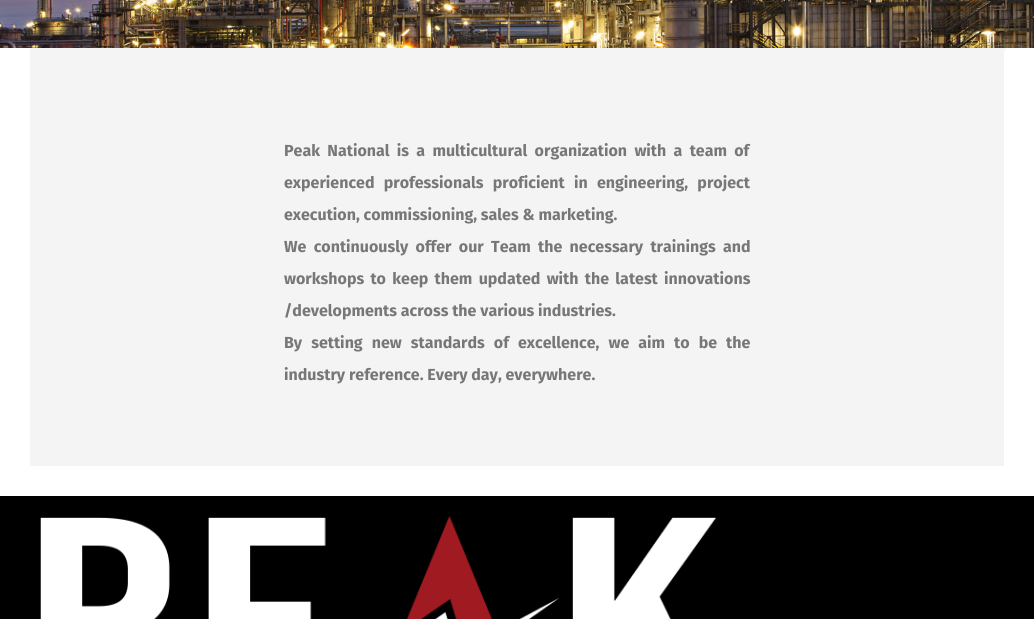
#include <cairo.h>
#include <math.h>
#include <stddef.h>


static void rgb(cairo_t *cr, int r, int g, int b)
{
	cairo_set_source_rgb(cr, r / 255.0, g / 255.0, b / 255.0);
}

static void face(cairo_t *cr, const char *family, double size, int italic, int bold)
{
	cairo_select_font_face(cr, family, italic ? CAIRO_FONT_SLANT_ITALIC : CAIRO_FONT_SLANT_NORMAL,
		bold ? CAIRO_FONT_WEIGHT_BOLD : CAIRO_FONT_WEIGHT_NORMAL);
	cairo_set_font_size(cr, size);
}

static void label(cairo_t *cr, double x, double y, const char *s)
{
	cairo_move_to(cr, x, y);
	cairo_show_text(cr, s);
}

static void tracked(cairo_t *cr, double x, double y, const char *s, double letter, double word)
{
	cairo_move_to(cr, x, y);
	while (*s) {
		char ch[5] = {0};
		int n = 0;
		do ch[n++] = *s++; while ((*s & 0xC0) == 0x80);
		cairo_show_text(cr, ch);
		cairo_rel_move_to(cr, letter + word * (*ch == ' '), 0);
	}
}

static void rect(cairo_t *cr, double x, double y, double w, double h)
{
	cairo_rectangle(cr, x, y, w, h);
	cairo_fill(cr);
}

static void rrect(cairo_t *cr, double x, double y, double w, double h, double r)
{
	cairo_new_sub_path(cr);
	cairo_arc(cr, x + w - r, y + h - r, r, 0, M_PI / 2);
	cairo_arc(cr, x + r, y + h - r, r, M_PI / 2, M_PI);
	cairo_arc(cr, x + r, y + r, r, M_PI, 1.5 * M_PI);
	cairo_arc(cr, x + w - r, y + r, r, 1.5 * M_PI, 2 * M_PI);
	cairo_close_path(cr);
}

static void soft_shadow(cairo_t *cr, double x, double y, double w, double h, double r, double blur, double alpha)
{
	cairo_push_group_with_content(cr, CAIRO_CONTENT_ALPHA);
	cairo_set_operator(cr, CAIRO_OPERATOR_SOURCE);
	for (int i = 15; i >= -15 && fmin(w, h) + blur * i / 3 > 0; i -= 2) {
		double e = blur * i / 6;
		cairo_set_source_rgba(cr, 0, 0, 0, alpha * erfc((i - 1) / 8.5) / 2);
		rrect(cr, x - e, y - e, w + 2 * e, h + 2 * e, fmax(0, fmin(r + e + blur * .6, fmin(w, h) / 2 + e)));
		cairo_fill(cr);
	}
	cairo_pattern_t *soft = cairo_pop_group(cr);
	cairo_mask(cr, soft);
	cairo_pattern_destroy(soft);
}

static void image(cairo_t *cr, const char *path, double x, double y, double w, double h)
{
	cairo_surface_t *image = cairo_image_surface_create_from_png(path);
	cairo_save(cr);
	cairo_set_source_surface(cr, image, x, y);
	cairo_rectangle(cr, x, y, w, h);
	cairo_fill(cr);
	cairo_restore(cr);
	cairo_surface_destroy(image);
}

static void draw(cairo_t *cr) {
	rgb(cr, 255, 255, 255);
	cairo_paint(cr);
	rgb(cr, 0, 0, 0);
	soft_shadow(cr, 32, -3, 974, 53, 0, 1, 0.04);
	image(cr, "image0.png", 0, 0, 1034, 48);
	rgb(cr, 244, 244, 244);
	rect(cr, 30, 48, 974, 418);
	face(cr, "Fira Sans", 16, 0, 1);
	rgb(cr, 119, 119, 119);
	tracked(cr, 284, 156, "Peak National is a multicultural organization with a team of", 0, 3.5);
	tracked(cr, 284, 188, "experienced professionals proficient in engineering, project", 0, 5.5);
	label(cr, 284, 220, "execution, commissioning, sales & marketing.");
	tracked(cr, 284, 252, "We continuously offer our Team the necessary trainings and", 0, 3.5);
	tracked(cr, 284, 284, "workshops to keep them updated with the latest innovations", 0, 2.5);
	label(cr, 284, 316, "/developments across the various industries.");
	tracked(cr, 284, 348, "By setting new standards of excellence, we aim to be the", 0, 5.25);
	label(cr, 284, 380, "industry reference. Every day, everywhere.");
	rgb(cr, 0, 0, 0);
	rect(cr, 0, 496, 1034, 123);
	image(cr, "image1.png", 40, 516, 677, 103);
}

int main(void) {
	cairo_surface_t *surface = cairo_image_surface_create(CAIRO_FORMAT_RGB24, 1034, 619);
	cairo_t *cr = cairo_create(surface);
	cairo_font_options_t *options = cairo_font_options_create();
	cairo_font_options_set_hint_metrics(options, CAIRO_HINT_METRICS_OFF);
	cairo_font_options_set_hint_style(options, CAIRO_HINT_STYLE_NONE);
	cairo_set_font_options(cr, options);
	cairo_set_miter_limit(cr, 4);
	draw(cr);
	cairo_surface_write_to_png(surface, "render.png");
	cairo_font_options_destroy(options);
	cairo_destroy(cr);
	cairo_surface_destroy(surface);
	return 0;
}
